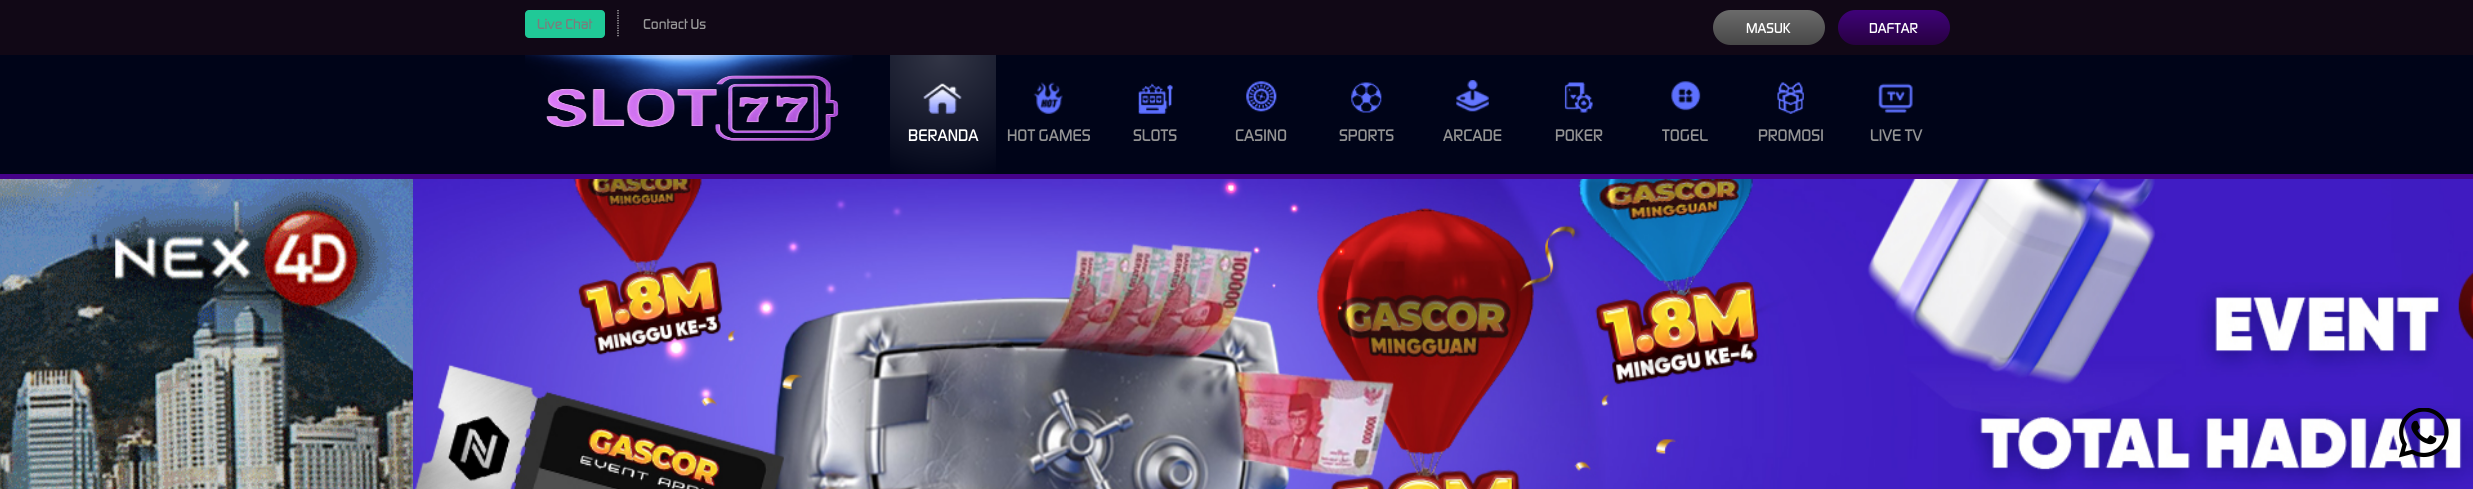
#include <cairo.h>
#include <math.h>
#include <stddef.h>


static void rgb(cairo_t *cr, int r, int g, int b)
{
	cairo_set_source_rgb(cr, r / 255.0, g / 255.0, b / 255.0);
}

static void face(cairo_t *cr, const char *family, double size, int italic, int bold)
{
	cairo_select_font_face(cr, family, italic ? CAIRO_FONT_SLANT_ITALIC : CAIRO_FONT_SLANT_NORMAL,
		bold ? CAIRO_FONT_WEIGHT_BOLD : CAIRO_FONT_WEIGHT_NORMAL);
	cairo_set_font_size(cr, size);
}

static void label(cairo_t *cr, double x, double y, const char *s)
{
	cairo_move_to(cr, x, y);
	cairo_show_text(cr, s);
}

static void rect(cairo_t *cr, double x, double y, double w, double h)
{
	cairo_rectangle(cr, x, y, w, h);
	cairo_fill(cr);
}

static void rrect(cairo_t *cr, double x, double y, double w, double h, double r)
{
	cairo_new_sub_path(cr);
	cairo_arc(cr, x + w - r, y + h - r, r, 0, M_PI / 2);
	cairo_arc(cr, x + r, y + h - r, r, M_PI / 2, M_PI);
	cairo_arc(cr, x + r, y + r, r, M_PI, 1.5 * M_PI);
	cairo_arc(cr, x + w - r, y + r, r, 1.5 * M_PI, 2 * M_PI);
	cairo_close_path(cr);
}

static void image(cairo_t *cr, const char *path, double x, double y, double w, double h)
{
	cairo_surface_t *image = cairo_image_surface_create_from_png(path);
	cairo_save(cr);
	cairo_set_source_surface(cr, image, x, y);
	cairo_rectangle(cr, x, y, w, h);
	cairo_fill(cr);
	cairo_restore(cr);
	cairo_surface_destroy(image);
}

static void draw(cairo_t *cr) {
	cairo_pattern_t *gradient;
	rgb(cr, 17, 8, 22);
	cairo_paint(cr);
	rgb(cr, 32, 201, 151);
	rrect(cr, 525, 10, 80, 28, 4);
	cairo_fill(cr);
	face(cr, "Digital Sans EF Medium", 15, 0, 0);
	rgb(cr, 124, 124, 124);
	label(cr, 537, 29, "Live Chat");
	cairo_new_path(cr);
	cairo_move_to(cr, 618, 10);
	cairo_line_to(cr, 618, 37.5);
	rgb(cr, 204, 204, 204);
	cairo_set_line_width(cr, 1.2);
	cairo_set_dash(cr, (double[]){1.25, 1.25}, 2, 0);
	cairo_stroke(cr);
	rgb(cr, 153, 153, 153);
	label(cr, 643, 29, "Contact Us");
	gradient = cairo_pattern_create_linear(1769, 10, 1769, 45);
	cairo_pattern_add_color_stop_rgba(gradient, 0, 0.416, 0.416, 0.416, 1);
	cairo_pattern_add_color_stop_rgba(gradient, 1, 0.282, 0.282, 0.282, 1);
	cairo_set_source(cr, gradient);
	cairo_pattern_destroy(gradient);
	rrect(cr, 1713, 10, 112, 35, 17.5);
	cairo_fill(cr);
	rgb(cr, 255, 255, 255);
	label(cr, 1746, 33, "MASUK");
	gradient = cairo_pattern_create_linear(1894, 10, 1894, 45);
	cairo_pattern_add_color_stop_rgba(gradient, 0, 0.247, 0.008, 0.475, 1);
	cairo_pattern_add_color_stop_rgba(gradient, 1, 0.153, 0.004, 0.251, 1);
	cairo_set_source(cr, gradient);
	cairo_pattern_destroy(gradient);
	rrect(cr, 1838, 10, 112, 35, 17.5);
	cairo_fill(cr);
	rgb(cr, 255, 255, 255);
	label(cr, 1869, 33, "DAFTAR");
	rgb(cr, 0, 4, 24);
	rect(cr, 0, 55, 2473, 119);
	rgb(cr, 70, 2, 137);
	rect(cr, 0, 174, 2473, 5);
	image(cr, "image0.png", 525, 55, 328, 59);
	image(cr, "image1.png", 546, 75, 293, 66);
	gradient = cairo_pattern_create_radial(943, 55, 0, 943, 55, 130);
	cairo_pattern_add_color_stop_rgba(gradient, 0, 0.2, 0.212, 0.275, 1);
	cairo_pattern_add_color_stop_rgba(gradient, 1, 0, 0.016, 0.094, 1);
	cairo_set_source(cr, gradient);
	cairo_pattern_destroy(gradient);
	rect(cr, 890, 55, 106, 119);
	image(cr, "image2.png", 923, 83, 39, 31);
	face(cr, "Digital Sans EF Medium", 17.5, 0, 0);
	rgb(cr, 255, 255, 255);
	label(cr, 908, 141, "BERANDA");
	image(cr, "image3.png", 1033, 82, 30, 32);
	rgb(cr, 147, 147, 147);
	label(cr, 1007, 141, "HOT GAMES");
	image(cr, "image4.png", 1138, 83, 35, 31);
	label(cr, 1133, 141, "SLOTS");
	image(cr, "image5.png", 1246, 81, 31, 31);
	label(cr, 1235, 141, "CASINO");
	image(cr, "image6.png", 1351, 82, 31, 31);
	label(cr, 1339, 141, "SPORTS");
	image(cr, "image7.png", 1456, 80, 33, 32);
	label(cr, 1443, 141, "ARCADE");
	image(cr, "image8.png", 1564, 82, 29, 31);
	label(cr, 1555, 141, "POKER");
	image(cr, "image9.png", 1671, 81, 30, 30);
	label(cr, 1662, 141, "TOGEL");
	image(cr, "image10.png", 1777, 82, 27, 32);
	label(cr, 1758, 141, "PROMOSI");
	image(cr, "image11.png", 1878, 83, 35, 30);
	label(cr, 1870, 141, "LIVE TV");
	image(cr, "image12.png", 0, 179, 413, 310);
	image(cr, "image13.png", 413, 179, 2060, 310);
	image(cr, "image14.png", 2399, 408, 50, 50);
}

int main(void) {
	cairo_surface_t *surface = cairo_image_surface_create(CAIRO_FORMAT_RGB24, 2473, 489);
	cairo_t *cr = cairo_create(surface);
	cairo_font_options_t *options = cairo_font_options_create();
	cairo_font_options_set_hint_metrics(options, CAIRO_HINT_METRICS_OFF);
	cairo_font_options_set_hint_style(options, CAIRO_HINT_STYLE_NONE);
	cairo_set_font_options(cr, options);
	cairo_set_miter_limit(cr, 4);
	draw(cr);
	cairo_surface_write_to_png(surface, "render.png");
	cairo_font_options_destroy(options);
	cairo_destroy(cr);
	cairo_surface_destroy(surface);
	return 0;
}
